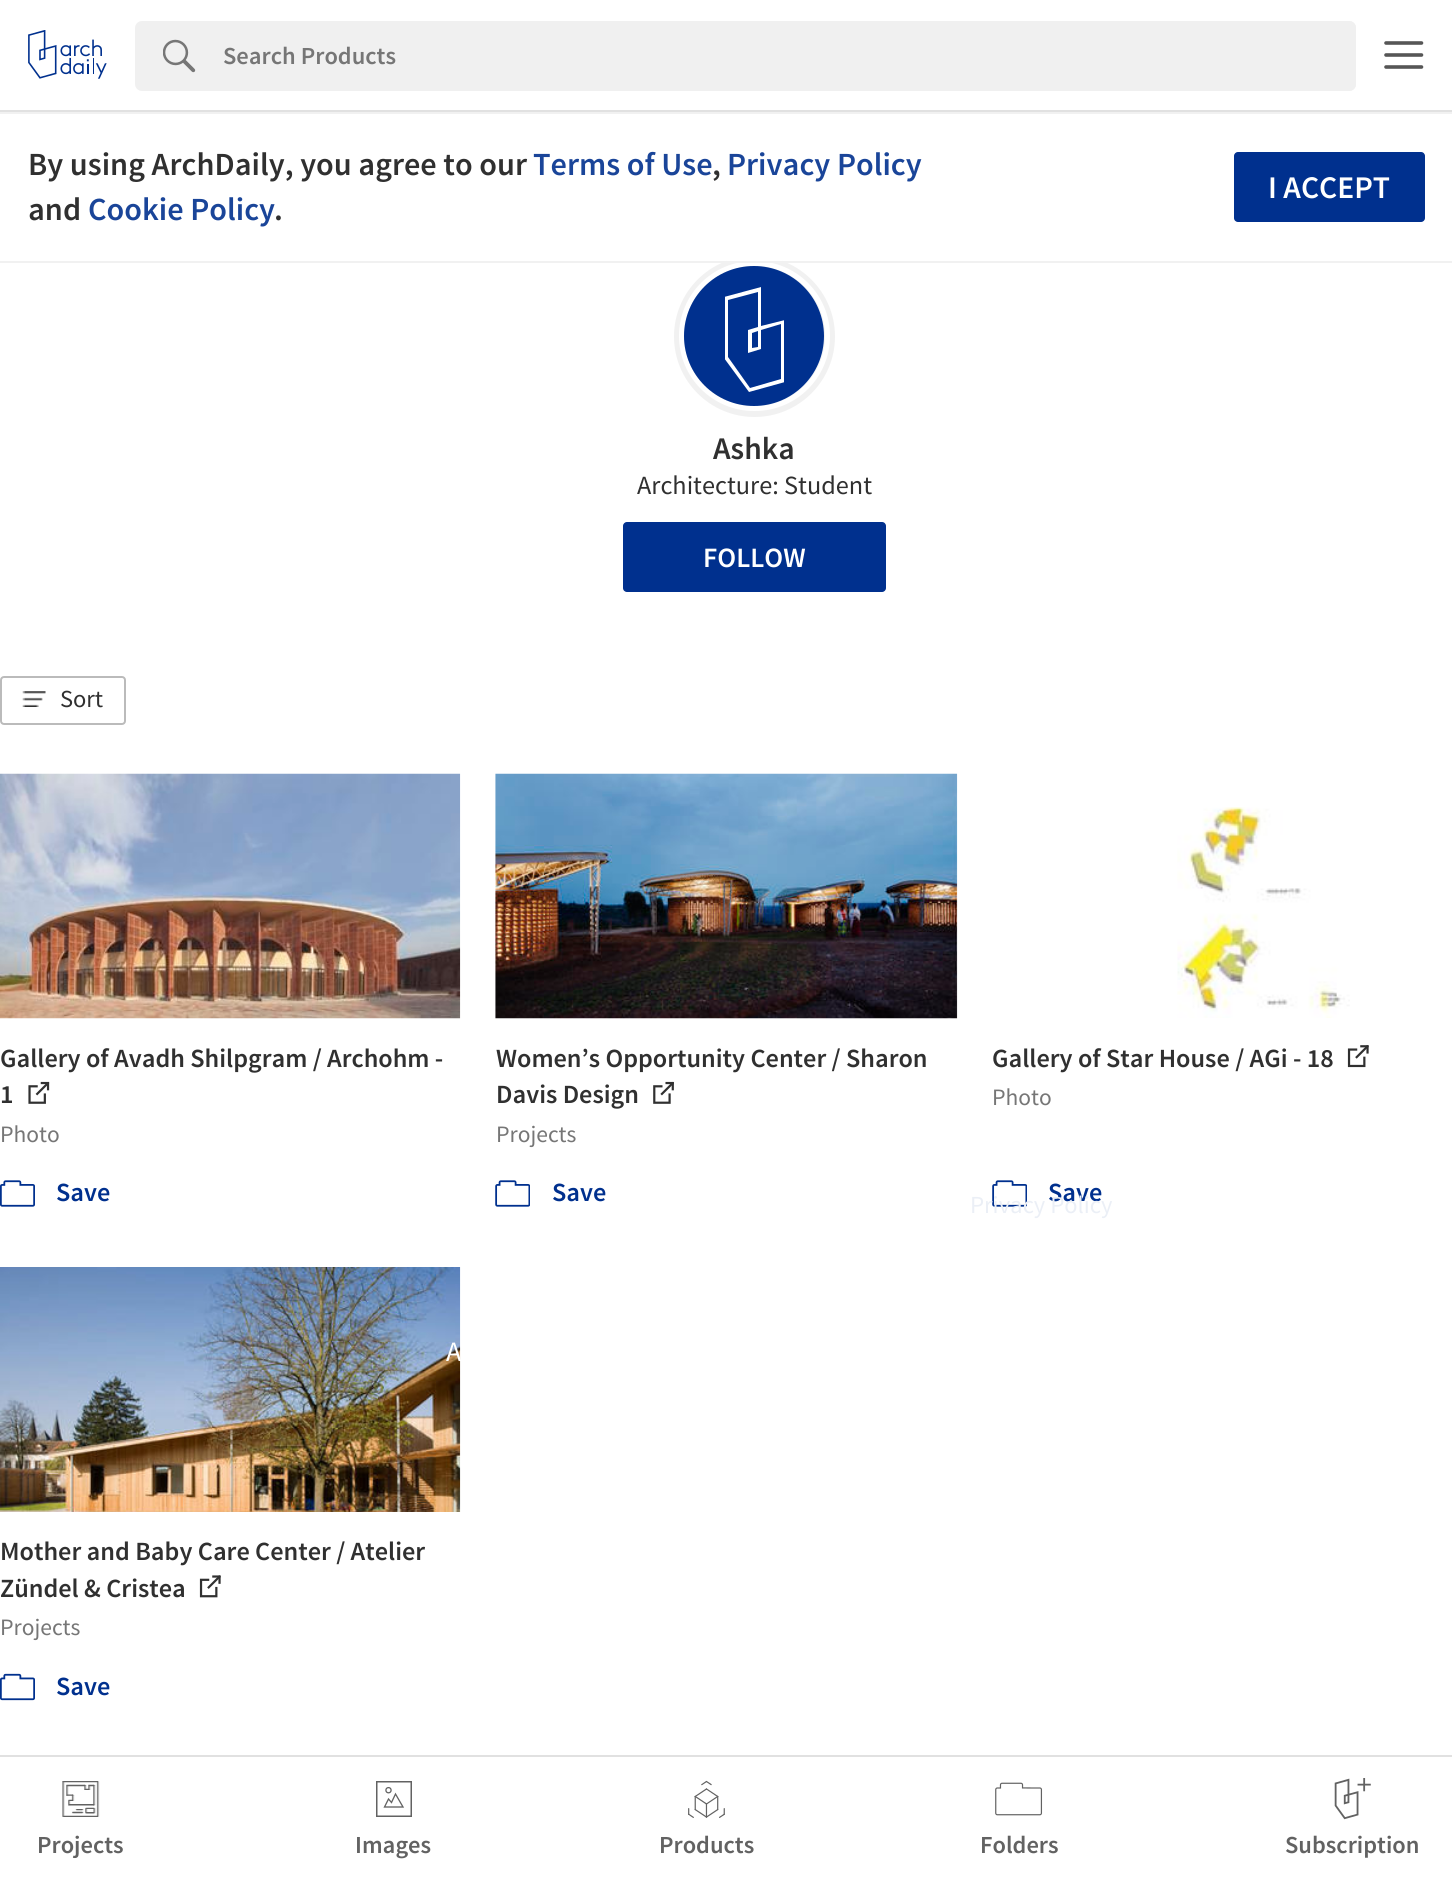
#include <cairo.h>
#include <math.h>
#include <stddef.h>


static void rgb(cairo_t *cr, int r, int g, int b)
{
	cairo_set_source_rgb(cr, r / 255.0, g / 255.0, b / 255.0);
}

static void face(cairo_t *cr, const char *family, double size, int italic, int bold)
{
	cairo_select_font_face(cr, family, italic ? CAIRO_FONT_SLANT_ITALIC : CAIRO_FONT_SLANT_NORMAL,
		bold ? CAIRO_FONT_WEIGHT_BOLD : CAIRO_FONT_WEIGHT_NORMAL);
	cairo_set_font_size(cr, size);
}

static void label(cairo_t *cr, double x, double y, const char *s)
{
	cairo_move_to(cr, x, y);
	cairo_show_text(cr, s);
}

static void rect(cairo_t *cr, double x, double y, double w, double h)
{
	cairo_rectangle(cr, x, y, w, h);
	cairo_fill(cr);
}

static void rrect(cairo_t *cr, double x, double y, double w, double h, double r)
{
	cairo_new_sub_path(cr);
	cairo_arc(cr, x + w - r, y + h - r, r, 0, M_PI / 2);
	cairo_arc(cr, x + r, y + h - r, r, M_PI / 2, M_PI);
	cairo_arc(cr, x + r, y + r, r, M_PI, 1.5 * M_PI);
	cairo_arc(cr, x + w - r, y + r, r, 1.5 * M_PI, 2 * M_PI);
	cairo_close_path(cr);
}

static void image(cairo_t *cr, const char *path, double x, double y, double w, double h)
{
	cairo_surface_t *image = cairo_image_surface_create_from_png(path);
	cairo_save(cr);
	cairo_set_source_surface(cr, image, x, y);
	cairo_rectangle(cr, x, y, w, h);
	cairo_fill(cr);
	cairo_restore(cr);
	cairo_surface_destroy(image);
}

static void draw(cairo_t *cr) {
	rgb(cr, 255, 255, 255);
	cairo_paint(cr);
	rgb(cr, 225, 225, 225);
	rect(cr, 0, 110, 1452, 2);
	image(cr, "image0.png", 28, 30, 79, 49);
	rgb(cr, 240, 240, 240);
	rrect(cr, 135, 21, 1221, 70, 7);
	cairo_fill(cr);
	image(cr, "image1.png", 163, 39, 33, 34);
	cairo_new_path(cr);
	cairo_move_to(cr, 224, 21);
	cairo_line_to(cr, 1349, 21);
	cairo_curve_to(cr, 1353, 21, 1356, 24, 1356, 28);
	cairo_line_to(cr, 1356, 84);
	cairo_curve_to(cr, 1356, 88, 1353, 91, 1349, 91);
	cairo_line_to(cr, 224, 91);
	cairo_close_path(cr);
	cairo_fill(cr);
	face(cr, "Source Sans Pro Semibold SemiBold", 24.5, 0, 0);
	rgb(cr, 118, 118, 118);
	label(cr, 223, 64, "Search Products");
	cairo_new_path(cr);
	cairo_move_to(cr, 1386, 43);
	cairo_line_to(cr, 1421.5, 43);
	cairo_move_to(cr, 1386, 55);
	cairo_line_to(cr, 1421.5, 55);
	cairo_move_to(cr, 1386, 67);
	cairo_line_to(cr, 1421.5, 67);
	rgb(cr, 86, 86, 86);
	cairo_set_line_width(cr, 3.6);
	cairo_set_line_cap(cr, CAIRO_LINE_CAP_ROUND);
	cairo_stroke(cr);
	cairo_arc(cr, 754.5, 336.5, 75, 0, 2 * M_PI);
	rgb(cr, 241, 241, 241);
	cairo_set_line_width(cr, 11);
	cairo_set_line_cap(cr, CAIRO_LINE_CAP_BUTT);
	cairo_stroke(cr);
	rgb(cr, 255, 255, 255);
	rect(cr, 727, 256, 55, 5);
	rgb(cr, 241, 241, 241);
	rect(cr, 0, 112, 1452, 2);
	rrect(cr, 681.5, 263.5, 146, 145, 72.5);
	rgb(cr, 255, 255, 255);
	cairo_set_line_width(cr, 5);
	cairo_stroke(cr);
	rgb(cr, 241, 241, 241);
	rect(cr, 0, 261, 1452, 2);
	face(cr, "Source Sans Pro Semibold SemiBold", 32.25, 0, 0);
	rgb(cr, 48, 48, 48);
	label(cr, 28, 175, "By using ArchDaily, you agree to our");
	rgb(cr, 26, 69, 153);
	label(cr, 533, 175, "Terms of Use");
	rgb(cr, 48, 48, 48);
	label(cr, 712, 175, ",");
	rgb(cr, 26, 69, 153);
	label(cr, 727, 175, "Privacy Policy");
	rgb(cr, 48, 48, 48);
	label(cr, 28, 220, "and");
	rgb(cr, 26, 69, 153);
	label(cr, 88, 220, "Cookie Policy");
	rgb(cr, 48, 48, 48);
	label(cr, 274, 220, ".");
	rgb(cr, 0, 48, 142);
	rrect(cr, 1234, 152, 191, 70, 4);
	cairo_fill(cr);
	face(cr, "Source Sans Pro Semibold SemiBold", 31.5, 0, 0);
	rgb(cr, 255, 255, 255);
	label(cr, 1268, 198, "I ACCEPT");
	rgb(cr, 0, 48, 142);
	cairo_new_path(cr);
	cairo_arc(cr, 754, 336, 70, 0, 2 * M_PI);
	cairo_fill(cr);
	cairo_save(cr);
	cairo_rectangle(cr, 725, 287, 59, 105);
	cairo_clip(cr);
	rgb(cr, 255, 255, 255);
	cairo_new_path(cr);
	cairo_move_to(cr, 749, 392);
	cairo_line_to(cr, 724, 358);
	cairo_line_to(cr, 724, 297);
	cairo_line_to(cr, 761, 287);
	cairo_line_to(cr, 761, 326);
	cairo_line_to(cr, 785, 320);
	cairo_line_to(cr, 785, 382);
	cairo_close_path(cr);
	cairo_move_to(cr, 728, 357);
	cairo_line_to(cr, 750, 388);
	cairo_line_to(cr, 781, 379);
	cairo_line_to(cr, 781, 324);
	cairo_line_to(cr, 761, 330);
	cairo_line_to(cr, 761, 349);
	cairo_line_to(cr, 748, 353);
	cairo_line_to(cr, 748, 330);
	cairo_line_to(cr, 758, 327);
	cairo_line_to(cr, 758, 292);
	cairo_line_to(cr, 728, 300);
	cairo_close_path(cr);
	cairo_move_to(cr, 752, 333);
	cairo_line_to(cr, 752, 348);
	cairo_line_to(cr, 758, 347);
	cairo_line_to(cr, 758, 331);
	cairo_close_path(cr);
	cairo_fill(cr);
	cairo_restore(cr);
	rgb(cr, 48, 48, 48);
	label(cr, 713, 459, "Ashka");
	face(cr, "Source Sans Pro", 26.25, 0, 0);
	label(cr, 637, 494, "Architecture: Student");
	rgb(cr, 0, 48, 142);
	rrect(cr, 623, 522, 263, 70, 4);
	cairo_fill(cr);
	face(cr, "Source Sans Pro Semibold SemiBold", 28, 0, 0);
	rgb(cr, 255, 255, 255);
	label(cr, 703, 567, "FOLLOW");
	rrect(cr, 1, 677, 124, 47, 3);
	rgb(cr, 187, 187, 187);
	cairo_set_line_width(cr, 2);
	cairo_stroke(cr);
	image(cr, "image2.png", 22, 691, 24, 16);
	face(cr, "Source Sans Pro", 24.5, 0, 0);
	rgb(cr, 48, 48, 48);
	label(cr, 60, 707, "Sort");
	image(cr, "image3.png", 0, 773, 461, 246);
	face(cr, "Source Sans Pro Semibold SemiBold", 26.25, 0, 0);
	label(cr, 0, 1067, "Gallery of Avadh Shilpgram / Archohm -");
	label(cr, 0, 1103, "1");
	image(cr, "image4.png", 28, 1081, 22, 23);
	face(cr, "Source Sans Pro", 23.5, 0, 0);
	rgb(cr, 118, 118, 118);
	label(cr, 0, 1142, "Photo");
	image(cr, "image5.png", 0, 1180, 35, 27);
	face(cr, "Source Sans Pro Semibold SemiBold", 26.25, 0, 0);
	rgb(cr, 0, 48, 142);
	label(cr, 56, 1201, "Save");
	image(cr, "image6.png", 495, 773, 463, 246);
	rgb(cr, 48, 48, 48);
	label(cr, 496, 1067, "Women’s Opportunity Center / Sharon");
	label(cr, 496, 1103, "Davis Design");
	image(cr, "image7.png", 653, 1081, 21, 23);
	face(cr, "Source Sans Pro", 23.5, 0, 0);
	rgb(cr, 118, 118, 118);
	label(cr, 496, 1142, "Projects");
	image(cr, "image8.png", 495, 1180, 35, 27);
	face(cr, "Source Sans Pro Semibold SemiBold", 26.25, 0, 0);
	rgb(cr, 0, 48, 142);
	label(cr, 552, 1201, "Save");
	image(cr, "image9.png", 1177, 807, 173, 211);
	rgb(cr, 48, 48, 48);
	label(cr, 992, 1067, "Gallery of Star House / AGi - 18");
	image(cr, "image10.png", 1347, 1045, 22, 23);
	face(cr, "Source Sans Pro", 23.5, 0, 0);
	rgb(cr, 118, 118, 118);
	label(cr, 992, 1105, "Photo");
	image(cr, "image8.png", 992, 1180, 35, 27);
	face(cr, "Source Sans Pro Semibold SemiBold", 26.25, 0, 0);
	rgb(cr, 0, 48, 142);
	label(cr, 1048, 1201, "Save");
	image(cr, "image11.png", 0, 1267, 461, 245);
	rgb(cr, 48, 48, 48);
	label(cr, 0, 1560, "Mother and Baby Care Center / Atelier");
	label(cr, 0, 1597, "Zündel & Cristea");
	image(cr, "image12.png", 199, 1575, 22, 23);
	face(cr, "Source Sans Pro", 23.5, 0, 0);
	rgb(cr, 118, 118, 118);
	label(cr, 0, 1635, "Projects");
	image(cr, "image13.png", 0, 1673, 35, 28);
	face(cr, "Source Sans Pro Semibold SemiBold", 26.25, 0, 0);
	rgb(cr, 0, 48, 142);
	label(cr, 56, 1695, "Save");
	face(cr, "Source Sans Pro", 24.5, 0, 0);
	rgb(cr, 235, 239, 246);
	label(cr, 970, 1213, "Privacy Policy");
	face(cr, "Source Sans Pro", 28, 0, 0);
	rgb(cr, 255, 255, 255);
	label(cr, 446, 1361, "A");
	rgb(cr, 225, 225, 225);
	rect(cr, 0, 1755, 1452, 2);
	image(cr, "image14.png", 62, 1781, 38, 36);
	face(cr, "Source Sans Pro Semibold SemiBold", 24.5, 0, 0);
	rgb(cr, 98, 98, 98);
	label(cr, 37, 1853, "Projects");
	cairo_rectangle(cr, 376.75, 1781.75, 34.5, 34.5);
	cairo_set_line_width(cr, 1.5);
	cairo_stroke(cr);
	cairo_new_path(cr);
	cairo_move_to(cr, 395.5, 1794);
	cairo_line_to(cr, 403, 1807);
	cairo_line_to(cr, 384.5, 1807);
	cairo_line_to(cr, 388.5, 1799);
	cairo_line_to(cr, 391.5, 1802.5);
	cairo_close_path(cr);
	cairo_set_line_width(cr, 1.3);
	cairo_set_line_cap(cr, CAIRO_LINE_CAP_ROUND);
	cairo_stroke(cr);
	cairo_arc(cr, 388.5, 1790.2, 2.6, 0, 2 * M_PI);
	cairo_set_line_cap(cr, CAIRO_LINE_CAP_BUTT);
	cairo_stroke(cr);
	label(cr, 355, 1853, "Images");
	image(cr, "image15.png", 688, 1780, 37, 38);
	label(cr, 659, 1853, "Products");
	image(cr, "image16.png", 995, 1782, 48, 34);
	label(cr, 980, 1853, "Folders");
	image(cr, "image17.png", 1334, 1778, 37, 42);
	label(cr, 1285, 1853, "Subscription");
}

int main(void) {
	cairo_surface_t *surface = cairo_image_surface_create(CAIRO_FORMAT_RGB24, 1452, 1886);
	cairo_t *cr = cairo_create(surface);
	cairo_font_options_t *options = cairo_font_options_create();
	cairo_font_options_set_hint_metrics(options, CAIRO_HINT_METRICS_OFF);
	cairo_font_options_set_hint_style(options, CAIRO_HINT_STYLE_NONE);
	cairo_set_font_options(cr, options);
	cairo_set_miter_limit(cr, 4);
	draw(cr);
	cairo_surface_write_to_png(surface, "render.png");
	cairo_font_options_destroy(options);
	cairo_destroy(cr);
	cairo_surface_destroy(surface);
	return 0;
}
